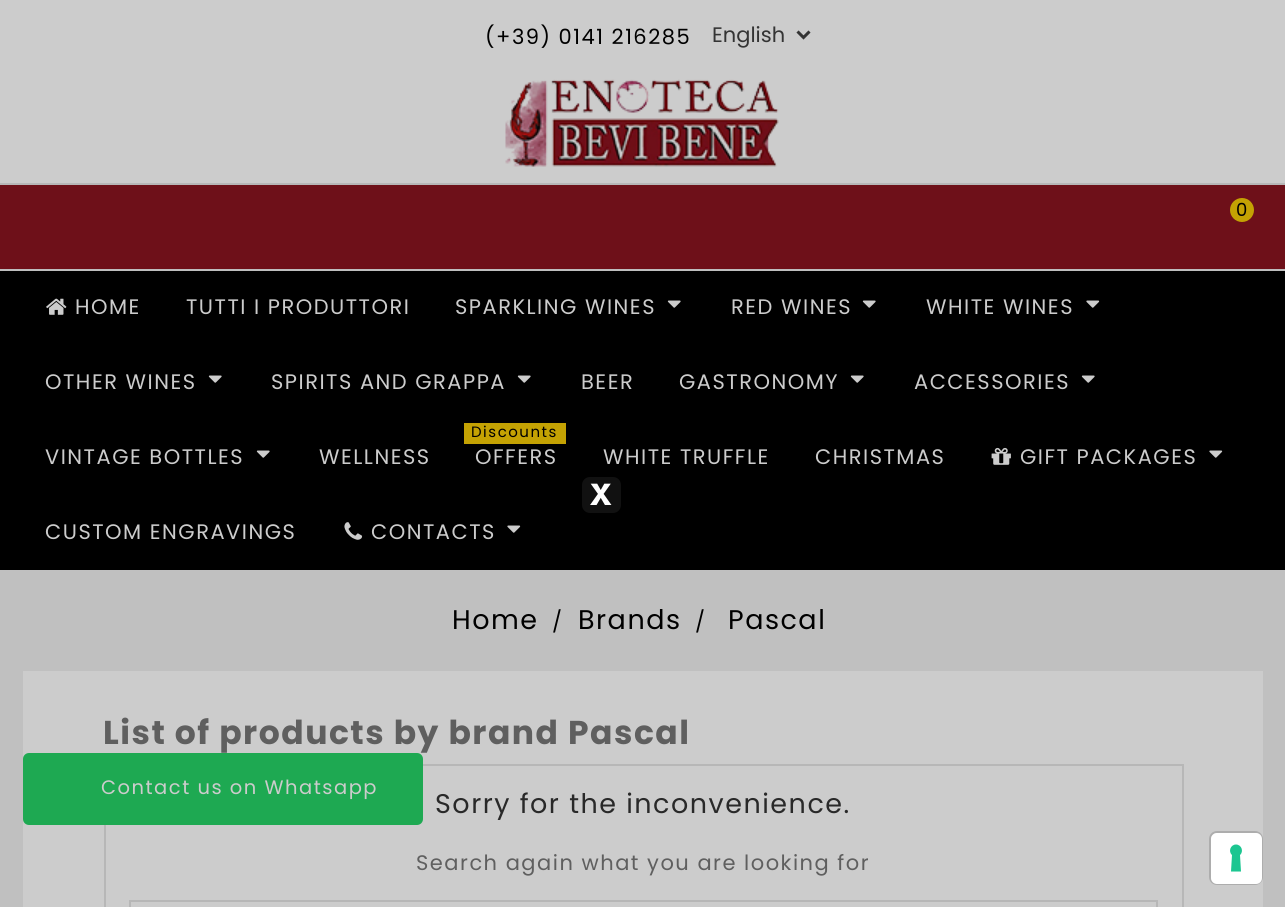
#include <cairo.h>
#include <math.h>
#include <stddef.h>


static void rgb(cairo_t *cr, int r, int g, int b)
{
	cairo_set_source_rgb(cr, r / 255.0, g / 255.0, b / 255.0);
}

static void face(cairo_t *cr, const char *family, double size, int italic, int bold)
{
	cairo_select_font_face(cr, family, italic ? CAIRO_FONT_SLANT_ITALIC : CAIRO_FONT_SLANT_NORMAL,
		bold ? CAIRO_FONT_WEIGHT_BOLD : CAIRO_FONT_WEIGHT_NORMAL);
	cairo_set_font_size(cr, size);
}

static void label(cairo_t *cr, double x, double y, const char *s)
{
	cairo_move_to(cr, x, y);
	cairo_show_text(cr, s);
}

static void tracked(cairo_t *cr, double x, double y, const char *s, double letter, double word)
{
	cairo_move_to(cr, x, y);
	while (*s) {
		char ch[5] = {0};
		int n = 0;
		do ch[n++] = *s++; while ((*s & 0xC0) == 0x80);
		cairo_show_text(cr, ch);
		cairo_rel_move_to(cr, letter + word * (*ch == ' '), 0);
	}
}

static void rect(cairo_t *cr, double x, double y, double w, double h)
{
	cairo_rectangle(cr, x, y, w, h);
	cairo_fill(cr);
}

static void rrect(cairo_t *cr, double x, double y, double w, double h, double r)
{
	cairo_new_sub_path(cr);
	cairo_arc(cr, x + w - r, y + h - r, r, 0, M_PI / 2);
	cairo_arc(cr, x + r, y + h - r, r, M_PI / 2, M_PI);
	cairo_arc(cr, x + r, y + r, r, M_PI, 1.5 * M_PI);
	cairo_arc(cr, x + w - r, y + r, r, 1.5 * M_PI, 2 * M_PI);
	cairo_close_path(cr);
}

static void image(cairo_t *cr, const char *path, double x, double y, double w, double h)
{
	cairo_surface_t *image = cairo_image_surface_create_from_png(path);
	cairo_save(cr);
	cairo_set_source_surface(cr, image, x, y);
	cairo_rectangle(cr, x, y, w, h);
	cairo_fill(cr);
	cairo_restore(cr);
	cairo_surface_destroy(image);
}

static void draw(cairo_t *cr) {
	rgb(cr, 204, 204, 204);
	cairo_paint(cr);
	rgb(cr, 183, 183, 183);
	rect(cr, 0, 183, 1285, 2);
	face(cr, "Poppins", 21, 0, 0);
	rgb(cr, 0, 0, 0);
	tracked(cr, 485, 44, "(+39) 0141 216285", 1.5, 0);
	cairo_new_path(cr);
	cairo_move_to(cr, 797.5, 31.5);
	cairo_line_to(cr, 803.5, 37.5);
	cairo_line_to(cr, 809.5, 31.5);
	rgb(cr, 52, 52, 52);
	cairo_set_line_width(cr, 3);
	cairo_stroke(cr);
	label(cr, 712, 42, "English");
	image(cr, "image0.png", 505, 79, 274, 88);
	rgb(cr, 110, 16, 25);
	rect(cr, 0, 185, 1285, 84);
	rgb(cr, 196, 162, 3);
	cairo_arc(cr, 1242, 210, 12, 0, 2 * M_PI);
	cairo_fill(cr);
	face(cr, "Poppins", 18, 0, 0);
	rgb(cr, 0, 0, 0);
	tracked(cr, 1236, 216, "0", 1.5, 0);
	rect(cr, 0, 271, 1285, 299);
	rgb(cr, 190, 190, 190);
	rect(cr, 0, 269, 1285, 2);
	image(cr, "image1.png", 46, 298, 21, 17);
	face(cr, "Poppins", 21, 0, 0);
	rgb(cr, 204, 204, 204);
	tracked(cr, 75, 314, "HOME", 1.5, 0);
	tracked(cr, 186, 314, "TUTTI I PRODUTTORI", 1.5, 0);
	tracked(cr, 455, 314, "SPARKLING WINES", 1.5, 0);
	image(cr, "image2.png", 667, 300, 14, 8);
	tracked(cr, 731, 314, "RED WINES", 1.5, 0);
	image(cr, "image2.png", 862, 300, 14, 8);
	tracked(cr, 926, 314, "WHITE WINES", 1.5, 0);
	image(cr, "image3.png", 1086, 300, 14, 8);
	tracked(cr, 45, 389, "OTHER WINES", 1.5, 0);
	image(cr, "image2.png", 208, 375, 14, 8);
	tracked(cr, 271, 389, "SPIRITS AND GRAPPA", 1.5, 0);
	image(cr, "image2.png", 517, 375, 14, 8);
	tracked(cr, 581, 389, "BEER", 1.5, 0);
	tracked(cr, 679, 389, "GASTRONOMY", 1.5, 0);
	image(cr, "image2.png", 850, 375, 14, 8);
	tracked(cr, 914, 389, "ACCESSORIES", 1.5, 0);
	image(cr, "image2.png", 1081, 375, 14, 8);
	tracked(cr, 45, 464, "VINTAGE BOTTLES", 1.5, 0);
	image(cr, "image2.png", 256, 450, 14, 8);
	tracked(cr, 319, 464, "WELLNESS", 1.5, 0);
	rgb(cr, 196, 162, 3);
	rect(cr, 464, 423, 102, 21);
	face(cr, "Poppins", 15, 0, 0);
	rgb(cr, 0, 0, 0);
	tracked(cr, 471, 437, "Discounts", 1.5, 0);
	face(cr, "Poppins", 21, 0, 0);
	rgb(cr, 204, 204, 204);
	tracked(cr, 475, 464, "OFFERS", 1.5, 0);
	tracked(cr, 603, 464, "WHITE TRUFFLE", 1.5, 0);
	tracked(cr, 815, 464, "CHRISTMAS", 1.5, 0);
	image(cr, "image4.png", 991, 447, 20, 18);
	tracked(cr, 1020, 464, "GIFT PACKAGES", 1.5, 0);
	image(cr, "image3.png", 1209, 450, 14, 8);
	tracked(cr, 45, 539, "CUSTOM ENGRAVINGS", 1.5, 0);
	image(cr, "image5.png", 344, 522, 19, 18);
	tracked(cr, 371, 539, "CONTACTS", 1.5, 0);
	image(cr, "image3.png", 507, 525, 14, 8);
	rgb(cr, 192, 192, 192);
	rect(cr, 0, 570, 1285, 337);
	rgb(cr, 204, 204, 204);
	rect(cr, 23, 671, 1240, 236);
	face(cr, "Poppins", 27, 0, 0);
	rgb(cr, 0, 0, 0);
	tracked(cr, 452, 629, "Home", 1.5, 0);
	face(cr, "Poppins", 21, 0, 0);
	tracked(cr, 552, 629, "/", 1.5, 0);
	face(cr, "Poppins", 27, 0, 0);
	tracked(cr, 578, 629, "Brands", 1.5, 0);
	face(cr, "Poppins", 21, 0, 0);
	tracked(cr, 695, 629, "/", 1.5, 0);
	face(cr, "Poppins", 27, 0, 0);
	tracked(cr, 728, 629, "Pascal", 1.5, 0);
	face(cr, "Poppins", 33, 0, 1);
	rgb(cr, 95, 95, 95);
	tracked(cr, 103, 744, "List of products by brand Pascal", 1.5, 0);
	cairo_rectangle(cr, 105, 765, 1078, 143);
	rgb(cr, 183, 183, 183);
	cairo_set_line_width(cr, 2);
	cairo_stroke(cr);
	face(cr, "Poppins", 27, 0, 0);
	rgb(cr, 41, 41, 41);
	tracked(cr, 435, 813, "Sorry for the inconvenience.", 1.5, 0);
	face(cr, "Poppins", 21, 0, 0);
	rgb(cr, 95, 95, 95);
	tracked(cr, 416, 870, "Search again what you are looking for", 1.5, 0);
	cairo_rectangle(cr, 130, 901, 1027, 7);
	rgb(cr, 183, 183, 183);
	cairo_stroke(cr);
	rgb(cr, 30, 169, 82);
	rrect(cr, 23, 753, 400, 72, 6);
	cairo_fill(cr);
	face(cr, "Poppins", 19.5, 0, 0);
	rgb(cr, 204, 204, 204);
	tracked(cr, 101, 794, "Contact us on Whatsapp", 1.5, 0);
	rgb(cr, 17, 17, 17);
	rrect(cr, 582, 477, 39, 36, 8);
	cairo_fill(cr);
	face(cr, "DejaVu Sans Mono", 39, 0, 1);
	rgb(cr, 255, 255, 255);
	label(cr, 589, 505, "x");
	rrect(cr, 1210, 832, 52, 52, 7);
	rgb(cr, 173, 173, 173);
	cairo_stroke(cr);
	rgb(cr, 255, 255, 255);
	rrect(cr, 1211, 833, 51, 51, 6);
	cairo_fill(cr);
	rgb(cr, 28, 198, 145);
	cairo_set_fill_rule(cr, CAIRO_FILL_RULE_EVEN_ODD);
	cairo_new_path(cr);
	cairo_move_to(cr, 1236, 844.5);
	cairo_curve_to(cr, 1241.5, 844.5, 1244, 851.5, 1240, 855);
	cairo_line_to(cr, 1241, 871.5);
	cairo_line_to(cr, 1231, 871.5);
	cairo_line_to(cr, 1232, 855);
	cairo_curve_to(cr, 1228, 851.5, 1230.5, 844.5, 1236, 844.5);
	cairo_close_path(cr);
	cairo_fill(cr);
}

int main(void) {
	cairo_surface_t *surface = cairo_image_surface_create(CAIRO_FORMAT_RGB24, 1285, 907);
	cairo_t *cr = cairo_create(surface);
	cairo_font_options_t *options = cairo_font_options_create();
	cairo_font_options_set_hint_metrics(options, CAIRO_HINT_METRICS_OFF);
	cairo_font_options_set_hint_style(options, CAIRO_HINT_STYLE_NONE);
	cairo_set_font_options(cr, options);
	cairo_set_miter_limit(cr, 4);
	draw(cr);
	cairo_surface_write_to_png(surface, "render.png");
	cairo_font_options_destroy(options);
	cairo_destroy(cr);
	cairo_surface_destroy(surface);
	return 0;
}
